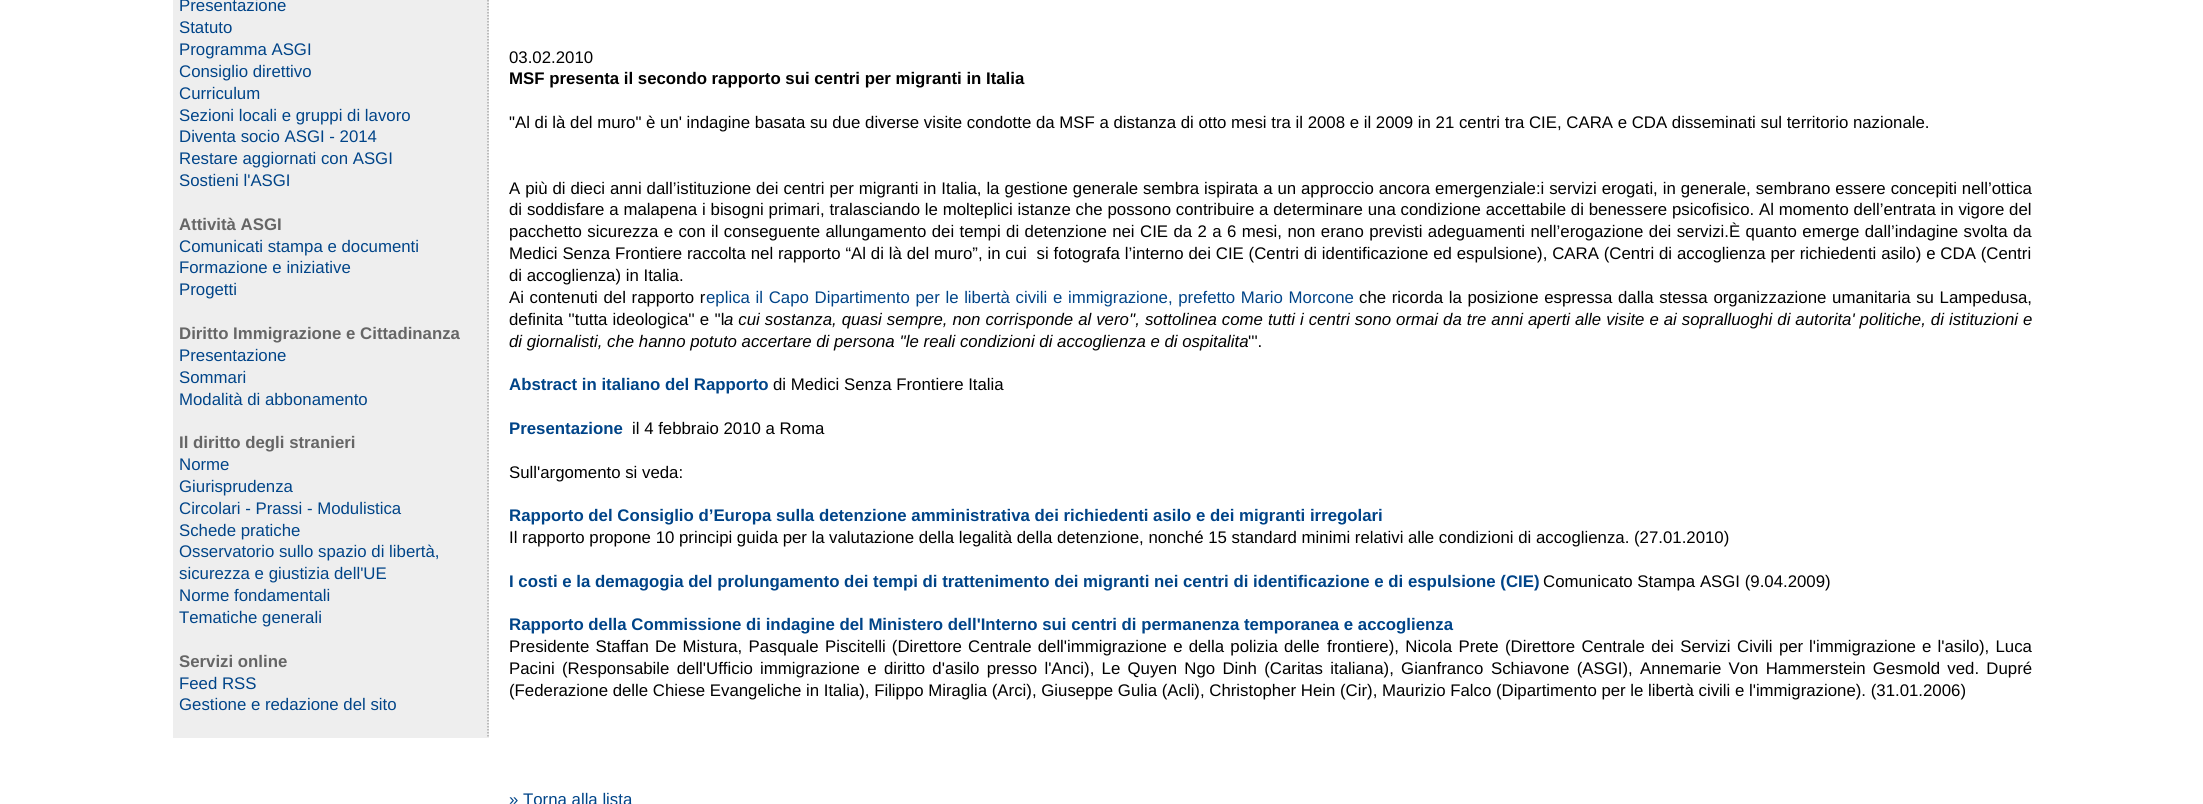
#include <cairo.h>
#include <math.h>
#include <stddef.h>


static void rgb(cairo_t *cr, int r, int g, int b)
{
	cairo_set_source_rgb(cr, r / 255.0, g / 255.0, b / 255.0);
}

static void face(cairo_t *cr, const char *family, double size, int italic, int bold)
{
	cairo_select_font_face(cr, family, italic ? CAIRO_FONT_SLANT_ITALIC : CAIRO_FONT_SLANT_NORMAL,
		bold ? CAIRO_FONT_WEIGHT_BOLD : CAIRO_FONT_WEIGHT_NORMAL);
	cairo_set_font_size(cr, size);
}

static void label(cairo_t *cr, double x, double y, const char *s)
{
	cairo_move_to(cr, x, y);
	cairo_show_text(cr, s);
}

static void tracked(cairo_t *cr, double x, double y, const char *s, double letter, double word)
{
	cairo_move_to(cr, x, y);
	while (*s) {
		char ch[5] = {0};
		int n = 0;
		do ch[n++] = *s++; while ((*s & 0xC0) == 0x80);
		cairo_show_text(cr, ch);
		cairo_rel_move_to(cr, letter + word * (*ch == ' '), 0);
	}
}

static void rect(cairo_t *cr, double x, double y, double w, double h)
{
	cairo_rectangle(cr, x, y, w, h);
	cairo_fill(cr);
}

static void draw(cairo_t *cr) {
	rgb(cr, 255, 255, 255);
	cairo_paint(cr);
	rgb(cr, 238, 238, 238);
	rect(cr, 173, 0, 316, 738);
	cairo_new_path(cr);
	cairo_move_to(cr, 488, -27);
	cairo_line_to(cr, 488, 738);
	rgb(cr, 170, 170, 170);
	cairo_set_line_width(cr, 1.5);
	cairo_set_dash(cr, (double[]){1.5, 1.5}, 2, 0);
	cairo_stroke(cr);
	face(cr, "Liberation Sans", 16.8, 0, 0);
	rgb(cr, 0, 68, 136);
	label(cr, 179, 11, "Presentazione");
	label(cr, 179, 33, "Statuto");
	label(cr, 179, 55, "Programma ASGI");
	label(cr, 179, 77, "Consiglio direttivo");
	label(cr, 179, 99, "Curriculum");
	label(cr, 179, 121, "Sezioni locali e gruppi di lavoro");
	label(cr, 179, 142, "Diventa socio ASGI - 2014");
	label(cr, 179, 164, "Restare aggiornati con ASGI");
	label(cr, 179, 186, "Sostieni l'ASGI");
	face(cr, "Liberation Sans", 16.8, 0, 1);
	rgb(cr, 102, 102, 102);
	label(cr, 179, 230, "Attività ASGI");
	face(cr, "Liberation Sans", 16.8, 0, 0);
	rgb(cr, 0, 68, 136);
	label(cr, 179, 252, "Comunicati stampa e documenti");
	label(cr, 179, 273, "Formazione e iniziative");
	label(cr, 179, 295, "Progetti");
	face(cr, "Liberation Sans", 16.8, 0, 1);
	rgb(cr, 102, 102, 102);
	label(cr, 179, 339, "Diritto Immigrazione e Cittadinanza");
	face(cr, "Liberation Sans", 16.8, 0, 0);
	rgb(cr, 0, 68, 136);
	label(cr, 179, 361, "Presentazione");
	label(cr, 179, 383, "Sommari");
	label(cr, 179, 405, "Modalità di abbonamento");
	face(cr, "Liberation Sans", 16.8, 0, 1);
	rgb(cr, 102, 102, 102);
	label(cr, 179, 448, "Il diritto degli stranieri");
	face(cr, "Liberation Sans", 16.8, 0, 0);
	rgb(cr, 0, 68, 136);
	label(cr, 179, 470, "Norme");
	label(cr, 179, 492, "Giurisprudenza");
	label(cr, 179, 514, "Circolari - Prassi - Modulistica");
	label(cr, 179, 536, "Schede pratiche");
	label(cr, 179, 557, "Osservatorio sullo spazio di libertà,");
	label(cr, 179, 579, "sicurezza e giustizia dell'UE");
	label(cr, 179, 601, "Norme fondamentali");
	label(cr, 179, 623, "Tematiche generali");
	face(cr, "Liberation Sans", 16.8, 0, 1);
	rgb(cr, 102, 102, 102);
	label(cr, 179, 667, "Servizi online");
	face(cr, "Liberation Sans", 16.8, 0, 0);
	rgb(cr, 0, 68, 136);
	label(cr, 179, 689, "Feed RSS");
	label(cr, 179, 710, "Gestione e redazione del sito");
	rgb(cr, 0, 0, 0);
	label(cr, 509, 63, "03.02.2010");
	face(cr, "Liberation Sans", 16.8, 0, 1);
	label(cr, 509, 84, "MSF presenta il secondo rapporto sui centri per migranti in Italia");
	face(cr, "Liberation Sans", 16.8, 0, 0);
	label(cr, 509, 128, "\"Al di là del muro\" è un' indagine basata su due diverse visite condotte da MSF a distanza di otto mesi tra il 2008 e il 2009 in 21 centri tra CIE, CARA e CDA disseminati sul territorio nazionale.");
	tracked(cr, 509, 194, "A più di dieci anni dall’istituzione dei centri per migranti in Italia, la gestione generale sembra ispirata a un approccio ancora emergenziale:i servizi erogati, in generale, sembrano essere concepiti nell’ottica", 0, 0.25);
	tracked(cr, 509, 215, "di soddisfare a malapena i bisogni primari, tralasciando le molteplici istanze che possono contribuire a determinare una condizione accettabile di benessere psicofisico. Al momento dell’entrata in vigore del", 0, 0.15);
	tracked(cr, 509, 237, "pacchetto sicurezza e con il conseguente allungamento dei tempi di detenzione nei CIE da 2 a 6 mesi, non erano previsti adeguamenti nell’erogazione dei servizi.È quanto emerge dall’indagine svolta da", 0, 0.75);
	tracked(cr, 509, 259, "Medici Senza Frontiere raccolta nel rapporto “Al di là del muro”, in cui  si fotografa l’interno dei CIE (Centri di identificazione ed espulsione), CARA (Centri di accoglienza per richiedenti asilo) e CDA (Centri", 0, 0.2);
	label(cr, 509, 281, "di accoglienza) in Italia.");
	tracked(cr, 509, 303, "Ai contenuti del rapporto r", 0, 1);
	rgb(cr, 0, 68, 136);
	tracked(cr, 706, 303, "eplica il Capo Dipartimento per le libertà civili e immigrazione, prefetto Mario Morcone", 0, 1);
	rgb(cr, 0, 0, 0);
	tracked(cr, 1359, 303, "che ricorda la posizione espressa dalla stessa organizzazione umanitaria su Lampedusa,", 0, 1);
	tracked(cr, 509, 325, "definita ''tutta ideologica'' e ''l", 0, 0.5);
	face(cr, "Liberation Sans", 16.8, 1, 0);
	tracked(cr, 724, 325, "a cui sostanza, quasi sempre, non corrisponde al vero'', sottolinea come tutti i centri sono ormai da tre anni aperti alle visite e ai sopralluoghi di autorita' politiche, di istituzioni e", 0, 0.3);
	label(cr, 509, 347, "di giornalisti, che hanno potuto accertare di persona ''le reali condizioni di accoglienza e di ospitalita");
	face(cr, "Liberation Sans", 16.8, 0, 0);
	label(cr, 1248, 347, "'''.");
	face(cr, "Liberation Sans", 16.8, 0, 1);
	rgb(cr, 0, 68, 136);
	label(cr, 509, 390, "Abstract in italiano del Rapporto");
	face(cr, "Liberation Sans", 16.8, 0, 0);
	rgb(cr, 0, 0, 0);
	label(cr, 773, 390, "di Medici Senza Frontiere Italia");
	face(cr, "Liberation Sans", 16.8, 0, 1);
	rgb(cr, 0, 68, 136);
	label(cr, 509, 434, "Presentazione");
	face(cr, "Liberation Sans", 16.8, 0, 0);
	rgb(cr, 0, 0, 0);
	label(cr, 632, 434, "il 4 febbraio 2010 a Roma");
	label(cr, 509, 478, "Sull'argomento si veda:");
	face(cr, "Liberation Sans", 16.8, 0, 1);
	rgb(cr, 0, 68, 136);
	label(cr, 509, 521, "Rapporto del Consiglio d’Europa sulla detenzione amministrativa dei richiedenti asilo e dei migranti irregolari");
	face(cr, "Liberation Sans", 16.8, 0, 0);
	rgb(cr, 0, 0, 0);
	label(cr, 509, 543, "Il rapporto propone 10 principi guida per la");
	label(cr, 829, 543, "valutazione della legalità della detenzione, nonché 15 standard minimi relativi alle condizioni di accoglienza. (27.01.2010)");
	face(cr, "Liberation Sans", 16.8, 0, 1);
	rgb(cr, 0, 68, 136);
	label(cr, 509, 587, "I costi e la demagogia del prolungamento dei tempi di trattenimento dei migranti nei centri di identificazione e di espulsione (CIE)");
	face(cr, "Liberation Sans", 16.8, 0, 0);
	rgb(cr, 0, 0, 0);
	label(cr, 1543, 587, "Comunicato Stampa ASGI (9.04.2009)");
	face(cr, "Liberation Sans", 16.8, 0, 1);
	rgb(cr, 0, 68, 136);
	label(cr, 509, 630, "Rapporto della Commissione di indagine del Ministero dell'Interno sui centri di permanenza temporanea e accoglienza");
	face(cr, "Liberation Sans", 16.8, 0, 0);
	rgb(cr, 0, 0, 0);
	tracked(cr, 509, 652, "Presidente Staffan De Mistura, Pasquale", 0, 1.5);
	tracked(cr, 825, 652, "Piscitelli (Direttore Centrale dell'immigrazione e della polizia delle", 0, 1.5);
	tracked(cr, 1327, 652, "frontiere), Nicola Prete (Direttore Centrale dei Servizi Civili per", 0, 1.75);
	tracked(cr, 1809, 652, "l'immigrazione e l'asilo), Luca", 0, 1.5);
	tracked(cr, 509, 674, "Pacini (Responsabile dell'Ufficio immigrazione e", 0, 2.6);
	tracked(cr, 884, 674, "diritto d'asilo presso l'Anci), Le Quyen Ngo Dinh (Caritas italiana), Gianfranco", 0, 2.6);
	tracked(cr, 1491, 674, "Schiavone (ASGI), Annemarie Von Hammerstein Gesmold ved. Dupré", 0, 2.6);
	label(cr, 509, 696, "(Federazione delle Chiese Evangeliche in Italia), Filippo Miraglia (Arci), Giuseppe Gulia (Acli), Christopher Hein (Cir), Maurizio Falco (Dipartimento per le libertà civili e l'immigrazione). (31.01.2006)");
	rgb(cr, 0, 68, 136);
	label(cr, 509, 805, "» Torna alla lista");
}

int main(void) {
	cairo_surface_t *surface = cairo_image_surface_create(CAIRO_FORMAT_RGB24, 2203, 804);
	cairo_t *cr = cairo_create(surface);
	cairo_font_options_t *options = cairo_font_options_create();
	cairo_font_options_set_hint_metrics(options, CAIRO_HINT_METRICS_OFF);
	cairo_font_options_set_hint_style(options, CAIRO_HINT_STYLE_NONE);
	cairo_set_font_options(cr, options);
	cairo_set_miter_limit(cr, 4);
	draw(cr);
	cairo_surface_write_to_png(surface, "render.png");
	cairo_font_options_destroy(options);
	cairo_destroy(cr);
	cairo_surface_destroy(surface);
	return 0;
}
